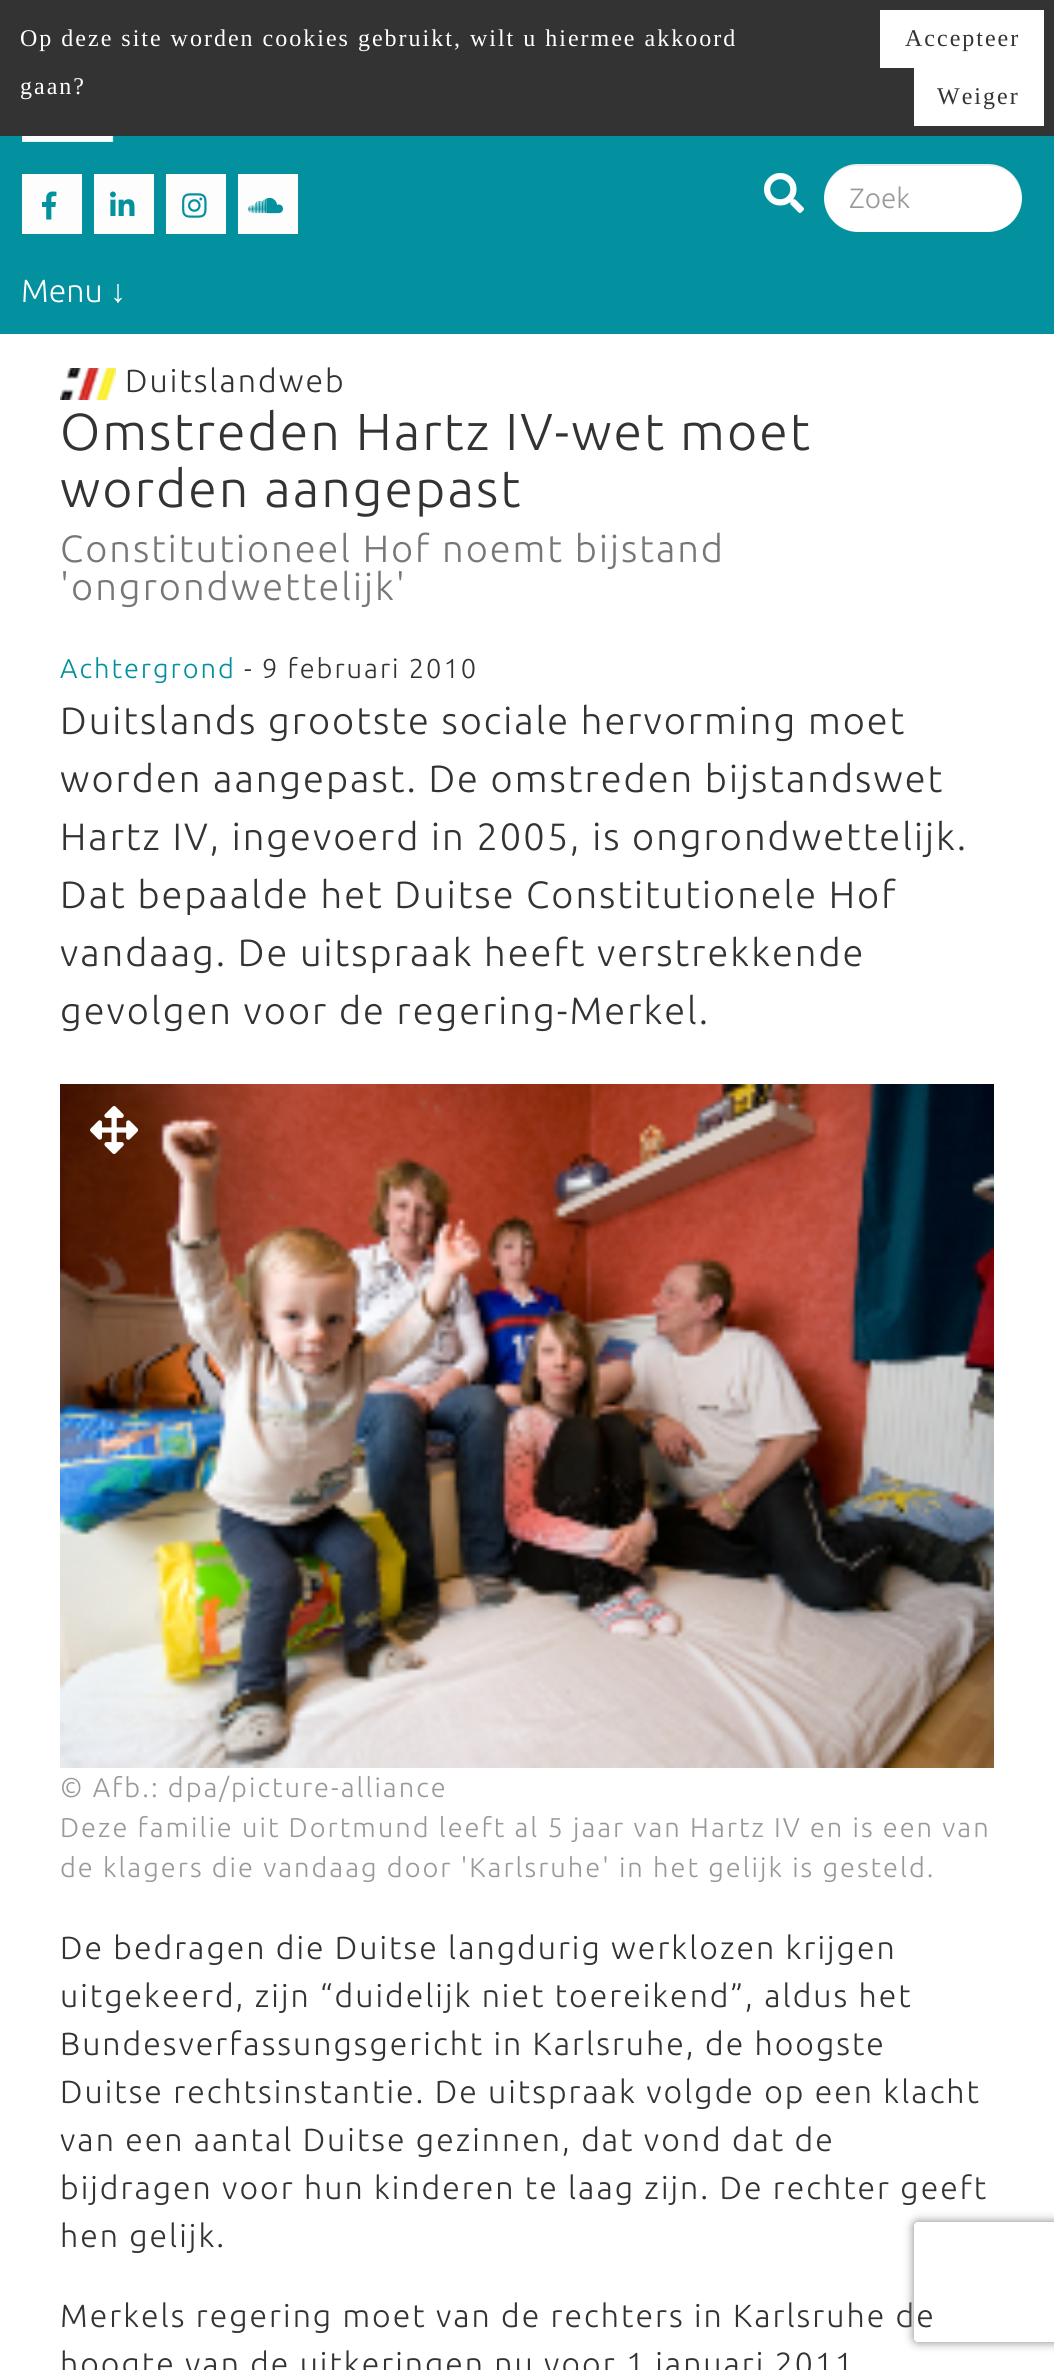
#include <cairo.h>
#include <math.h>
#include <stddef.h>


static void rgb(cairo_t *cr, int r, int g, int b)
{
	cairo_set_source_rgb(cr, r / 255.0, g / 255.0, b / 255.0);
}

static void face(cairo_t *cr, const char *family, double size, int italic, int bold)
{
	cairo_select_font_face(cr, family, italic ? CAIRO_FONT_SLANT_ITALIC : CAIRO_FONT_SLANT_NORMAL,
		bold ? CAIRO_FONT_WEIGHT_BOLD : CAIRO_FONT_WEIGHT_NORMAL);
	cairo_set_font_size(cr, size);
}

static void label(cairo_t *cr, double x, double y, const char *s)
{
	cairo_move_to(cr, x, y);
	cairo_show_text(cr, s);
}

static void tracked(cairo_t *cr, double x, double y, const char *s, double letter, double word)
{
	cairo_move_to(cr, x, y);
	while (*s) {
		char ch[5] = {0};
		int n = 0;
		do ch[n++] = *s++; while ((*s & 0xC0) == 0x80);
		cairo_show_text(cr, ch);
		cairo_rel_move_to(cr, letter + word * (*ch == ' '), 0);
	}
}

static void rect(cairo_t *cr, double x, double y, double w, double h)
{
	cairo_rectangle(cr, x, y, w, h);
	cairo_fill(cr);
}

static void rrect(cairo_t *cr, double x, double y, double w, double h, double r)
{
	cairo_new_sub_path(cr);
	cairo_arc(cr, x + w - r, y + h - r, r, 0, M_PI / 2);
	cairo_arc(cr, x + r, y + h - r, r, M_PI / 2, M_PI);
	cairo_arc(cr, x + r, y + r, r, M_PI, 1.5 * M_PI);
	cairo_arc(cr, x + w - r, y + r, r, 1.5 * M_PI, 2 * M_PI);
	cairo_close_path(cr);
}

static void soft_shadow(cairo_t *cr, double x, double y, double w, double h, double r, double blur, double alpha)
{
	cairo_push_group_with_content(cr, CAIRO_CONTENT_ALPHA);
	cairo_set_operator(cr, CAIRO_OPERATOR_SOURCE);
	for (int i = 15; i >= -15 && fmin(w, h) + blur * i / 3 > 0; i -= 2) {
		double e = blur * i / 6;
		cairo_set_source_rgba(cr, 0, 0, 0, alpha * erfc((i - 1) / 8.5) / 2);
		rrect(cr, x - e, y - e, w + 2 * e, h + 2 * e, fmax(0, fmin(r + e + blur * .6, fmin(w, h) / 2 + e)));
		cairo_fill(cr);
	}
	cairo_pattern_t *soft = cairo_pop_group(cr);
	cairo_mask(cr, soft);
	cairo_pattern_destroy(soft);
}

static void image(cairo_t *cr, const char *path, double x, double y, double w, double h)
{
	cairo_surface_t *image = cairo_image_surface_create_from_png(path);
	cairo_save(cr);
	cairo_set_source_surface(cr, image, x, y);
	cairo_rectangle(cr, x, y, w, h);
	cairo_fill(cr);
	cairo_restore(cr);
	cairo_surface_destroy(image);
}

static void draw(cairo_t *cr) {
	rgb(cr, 255, 255, 255);
	cairo_paint(cr);
	rgb(cr, 51, 51, 51);
	rect(cr, 0, 0, 1054, 136);
	face(cr, "Liberation Serif", 24, 0, 0);
	rgb(cr, 255, 255, 255);
	tracked(cr, 20, 46, "Op deze site worden cookies gebruikt, wilt u hiermee akkoord", 2, 0);
	tracked(cr, 20, 94, "gaan?", 2, 0);
	rect(cr, 880, 10, 164, 58);
	rgb(cr, 51, 51, 51);
	tracked(cr, 905, 46, "Accepteer", 2, 0);
	rgb(cr, 255, 255, 255);
	rect(cr, 914, 68, 130, 58);
	rgb(cr, 51, 51, 51);
	tracked(cr, 937, 104, "Weiger", 2, 0);
	rgb(cr, 3, 145, 159);
	rect(cr, 0, 136, 1054, 198);
	image(cr, "image0.png", 22, 136, 92, 6);
	rgb(cr, 253, 253, 253);
	rect(cr, 22, 174, 60, 60);
	image(cr, "image1.png", 42, 191, 15, 29);
	rect(cr, 94, 174, 60, 60);
	image(cr, "image2.png", 110, 191, 25, 25);
	rect(cr, 166, 174, 60, 60);
	image(cr, "image3.png", 182, 193, 25, 25);
	rect(cr, 238, 174, 60, 60);
	image(cr, "image4.png", 248, 197, 35, 17);
	image(cr, "image5.png", 764, 173, 40, 40);
	rgb(cr, 255, 255, 255);
	rrect(cr, 824, 164, 198, 68, 34);
	cairo_fill(cr);
	cairo_set_source_rgba(cr, 0.012, 0.012, 0.012, 0.07);
	cairo_new_path(cr);
	cairo_move_to(cr, 858, 166);
	cairo_line_to(cr, 988, 166);
	cairo_curve_to(cr, 1007, 166, 1021, 180, 1022, 199);
	cairo_line_to(cr, 1022, 198);
	cairo_curve_to(cr, 1022, 179, 1007, 164, 988, 164);
	cairo_line_to(cr, 858, 164);
	cairo_curve_to(cr, 839, 164, 824, 179, 824, 198);
	cairo_line_to(cr, 824, 199);
	cairo_curve_to(cr, 825, 180, 839, 166, 858, 166);
	cairo_close_path(cr);
	cairo_fill(cr);
	face(cr, "Ubuntu Light", 28, 0, 0);
	rgb(cr, 153, 153, 153);
	label(cr, 849, 208, "Zoek");
	face(cr, "Ubuntu Light", 32, 0, 0);
	rgb(cr, 255, 255, 255);
	label(cr, 21, 302, "Menu");
	face(cr, "Liberation Serif", 32, 0, 0);
	label(cr, 110, 302, "↓");
	image(cr, "image6.png", 60, 368, 56, 32);
	face(cr, "Ubuntu Light", 32, 0, 0);
	rgb(cr, 51, 51, 51);
	tracked(cr, 125, 392, "Duitslandweb", 2, 0);
	face(cr, "Ubuntu Light", 52, 0, 0);
	tracked(cr, 60, 450, "Omstreden Hartz IV-wet moet", 2, 0);
	tracked(cr, 60, 507, "worden aangepast", 2, 0);
	face(cr, "Ubuntu Light", 38, 0, 0);
	rgb(cr, 119, 119, 119);
	tracked(cr, 60, 562, "Constitutioneel Hof noemt bijstand", 2, 0);
	tracked(cr, 60, 600, "'ongrondwettelijk'", 2, 0);
	face(cr, "Ubuntu Light", 27.2, 0, 0);
	rgb(cr, 0, 144, 158);
	tracked(cr, 60, 678, "Achtergrond", 2, 0);
	rgb(cr, 51, 51, 51);
	tracked(cr, 244, 678, "- 9 februari 2010", 2, 0);
	face(cr, "Ubuntu Light", 38, 0, 0);
	tracked(cr, 60, 734, "Duitslands grootste sociale hervorming moet", 2, 0);
	tracked(cr, 60, 792, "worden aangepast. De omstreden bijstandswet", 2, 0);
	tracked(cr, 60, 850, "Hartz IV, ingevoerd in 2005, is ongrondwettelijk.", 2, 0);
	tracked(cr, 60, 908, "Dat bepaalde het Duitse Constitutionele Hof", 2, 0);
	tracked(cr, 60, 966, "vandaag. De uitspraak heeft verstrekkende", 2, 0);
	tracked(cr, 60, 1024, "gevolgen voor de regering-Merkel.", 2, 0);
	image(cr, "image7.png", 60, 1084, 934, 684);
	image(cr, "image8.png", 90, 1106, 49, 48);
	face(cr, "Ubuntu Light", 27.2, 0, 0);
	rgb(cr, 153, 153, 153);
	tracked(cr, 60, 1797, "© Afb.: dpa/picture-alliance", 2, 0);
	tracked(cr, 60, 1837, "Deze familie uit Dortmund leeft al 5 jaar van Hartz IV en is een van", 2, 0);
	tracked(cr, 60, 1877, "de klagers die vandaag door 'Karlsruhe' in het gelijk is gesteld.", 2, 0);
	face(cr, "Ubuntu Light", 32, 0, 0);
	rgb(cr, 51, 51, 51);
	tracked(cr, 60, 1959, "De bedragen die Duitse langdurig werklozen krijgen", 2, 0);
	tracked(cr, 60, 2007, "uitgekeerd, zijn “duidelijk niet toereikend”, aldus het", 2, 0);
	tracked(cr, 60, 2055, "Bundesverfassungsgericht in Karlsruhe, de hoogste", 2, 0);
	tracked(cr, 60, 2103, "Duitse rechtsinstantie. De uitspraak volgde op een klacht", 2, 0);
	tracked(cr, 60, 2151, "van een aantal Duitse gezinnen, dat vond dat de", 2, 0);
	tracked(cr, 60, 2199, "bijdragen voor hun kinderen te laag zijn. De rechter geeft", 2, 0);
	tracked(cr, 60, 2247, "hen gelijk.", 2, 0);
	tracked(cr, 60, 2327, "Merkels regering moet van de rechters in Karlsruhe de", 2, 0);
	tracked(cr, 60, 2375, "hoogte van de uitkeringen nu voor 1 januari 2011", 2, 0);
	cairo_save(cr);
	cairo_set_fill_rule(cr, CAIRO_FILL_RULE_EVEN_ODD);
	cairo_new_path(cr);
	cairo_move_to(cr, 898, 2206);
	cairo_line_to(cr, 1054, 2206);
	cairo_line_to(cr, 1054, 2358);
	cairo_line_to(cr, 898, 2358);
	cairo_close_path(cr);
	cairo_move_to(cr, 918, 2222);
	cairo_line_to(cr, 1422, 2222);
	cairo_curve_to(cr, 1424, 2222, 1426, 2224, 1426, 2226);
	cairo_line_to(cr, 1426, 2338);
	cairo_curve_to(cr, 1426, 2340, 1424, 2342, 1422, 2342);
	cairo_line_to(cr, 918, 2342);
	cairo_curve_to(cr, 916, 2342, 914, 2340, 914, 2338);
	cairo_line_to(cr, 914, 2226);
	cairo_curve_to(cr, 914, 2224, 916, 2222, 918, 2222);
	cairo_close_path(cr);
	cairo_clip(cr);
	rgb(cr, 128, 128, 128);
	soft_shadow(cr, 914, 2222, 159, 120, 4, 5, 1);
	cairo_restore(cr);
}

int main(void) {
	cairo_surface_t *surface = cairo_image_surface_create(CAIRO_FORMAT_RGB24, 1054, 2370);
	cairo_t *cr = cairo_create(surface);
	cairo_font_options_t *options = cairo_font_options_create();
	cairo_font_options_set_hint_metrics(options, CAIRO_HINT_METRICS_OFF);
	cairo_font_options_set_hint_style(options, CAIRO_HINT_STYLE_NONE);
	cairo_set_font_options(cr, options);
	cairo_set_miter_limit(cr, 4);
	draw(cr);
	cairo_surface_write_to_png(surface, "render.png");
	cairo_font_options_destroy(options);
	cairo_destroy(cr);
	cairo_surface_destroy(surface);
	return 0;
}
